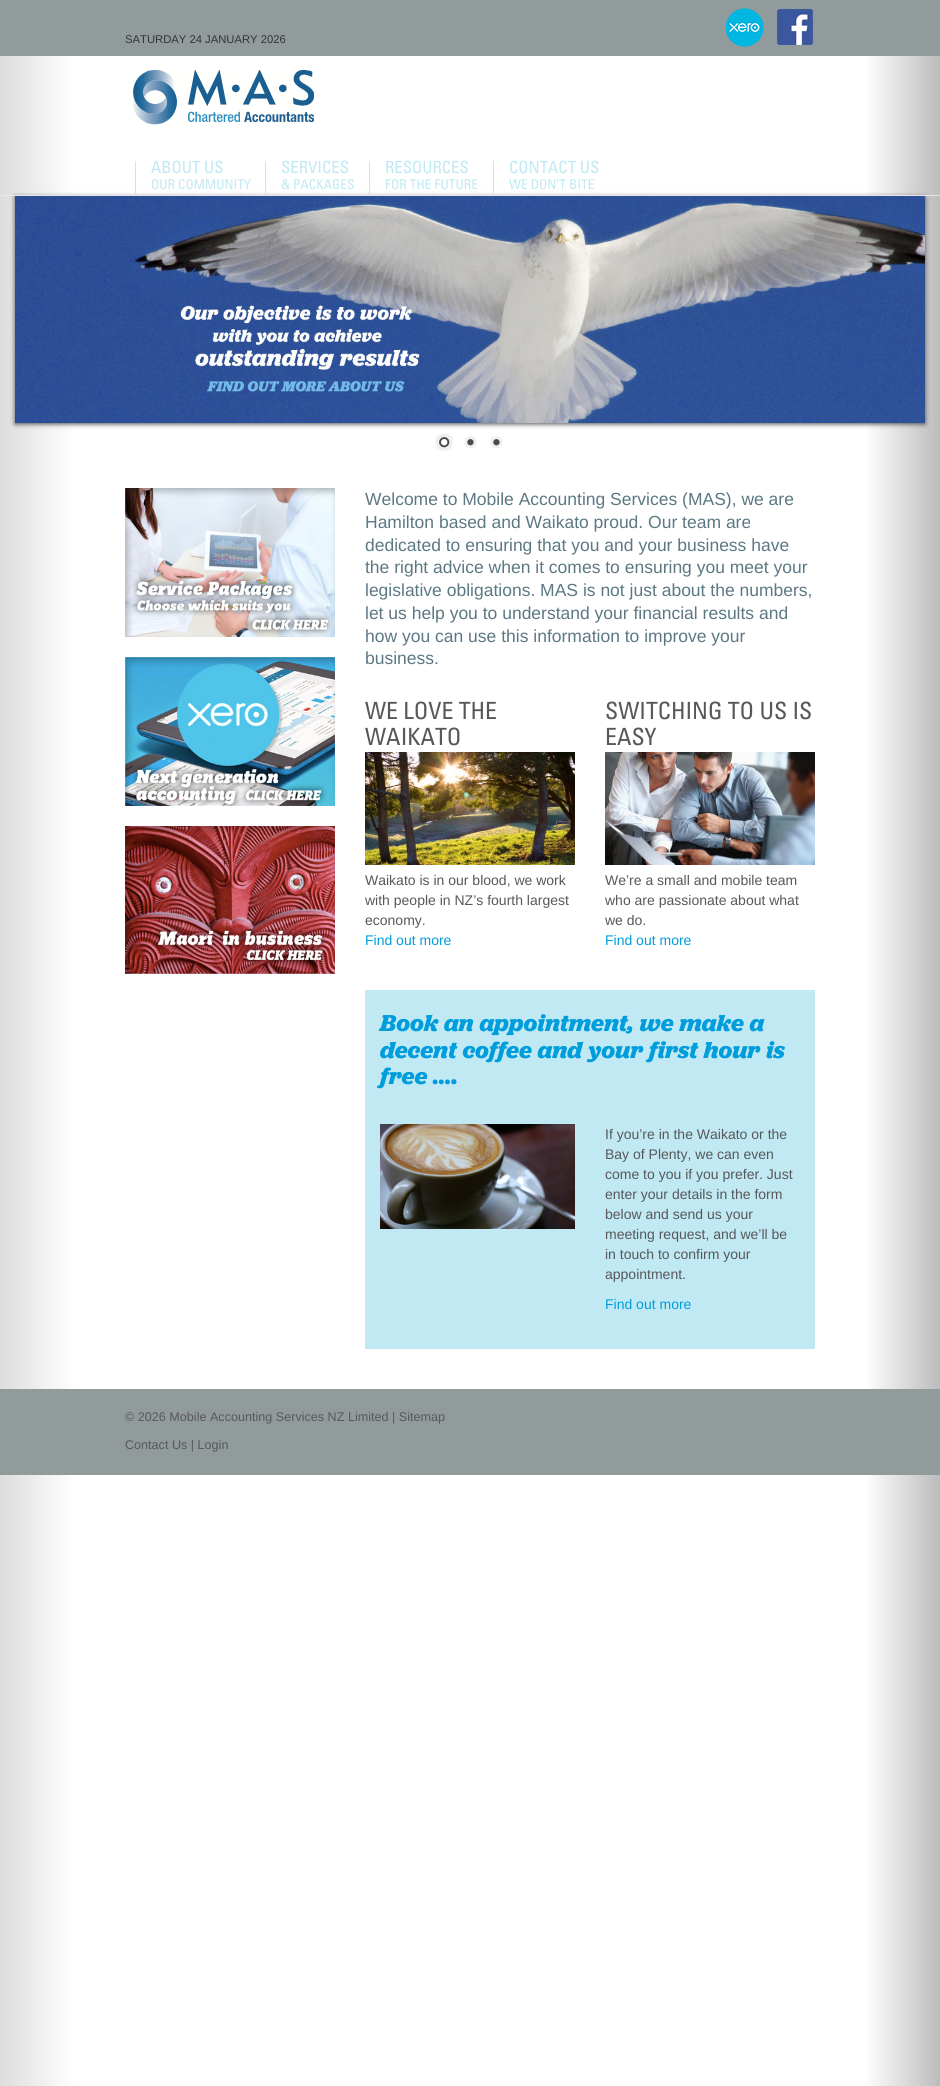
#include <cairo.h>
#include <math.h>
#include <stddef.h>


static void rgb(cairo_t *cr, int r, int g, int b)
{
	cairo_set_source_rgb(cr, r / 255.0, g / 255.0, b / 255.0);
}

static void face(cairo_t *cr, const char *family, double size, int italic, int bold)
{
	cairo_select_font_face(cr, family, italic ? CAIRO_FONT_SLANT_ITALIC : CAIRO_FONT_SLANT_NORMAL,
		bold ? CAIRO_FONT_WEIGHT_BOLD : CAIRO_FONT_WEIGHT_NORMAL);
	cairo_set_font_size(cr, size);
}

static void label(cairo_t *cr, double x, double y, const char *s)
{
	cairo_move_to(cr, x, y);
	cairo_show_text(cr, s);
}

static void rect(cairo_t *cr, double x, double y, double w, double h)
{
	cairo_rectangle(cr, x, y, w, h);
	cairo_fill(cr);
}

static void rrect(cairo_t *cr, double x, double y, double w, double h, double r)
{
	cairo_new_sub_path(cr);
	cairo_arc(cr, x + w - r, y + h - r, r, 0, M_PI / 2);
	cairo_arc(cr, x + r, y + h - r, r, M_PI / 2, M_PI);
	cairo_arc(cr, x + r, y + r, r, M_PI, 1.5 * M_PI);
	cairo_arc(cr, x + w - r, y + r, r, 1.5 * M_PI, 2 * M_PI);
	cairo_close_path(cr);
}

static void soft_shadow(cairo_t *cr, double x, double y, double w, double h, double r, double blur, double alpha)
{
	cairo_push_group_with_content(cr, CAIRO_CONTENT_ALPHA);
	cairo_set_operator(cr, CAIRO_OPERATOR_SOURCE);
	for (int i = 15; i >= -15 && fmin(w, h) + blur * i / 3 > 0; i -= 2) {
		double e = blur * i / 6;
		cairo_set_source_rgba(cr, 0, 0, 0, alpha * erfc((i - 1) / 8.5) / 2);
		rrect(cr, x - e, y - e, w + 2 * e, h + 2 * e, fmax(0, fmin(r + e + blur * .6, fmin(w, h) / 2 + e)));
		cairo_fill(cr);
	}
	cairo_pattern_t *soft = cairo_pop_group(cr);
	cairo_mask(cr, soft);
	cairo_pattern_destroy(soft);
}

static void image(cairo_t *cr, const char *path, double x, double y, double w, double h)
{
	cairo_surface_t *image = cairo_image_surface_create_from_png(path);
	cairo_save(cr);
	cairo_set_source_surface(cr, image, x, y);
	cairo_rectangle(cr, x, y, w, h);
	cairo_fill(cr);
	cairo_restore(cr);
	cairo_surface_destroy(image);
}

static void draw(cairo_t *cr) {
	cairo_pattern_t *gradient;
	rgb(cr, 255, 255, 255);
	cairo_paint(cr);
	gradient = cairo_pattern_create_linear(0, 738, 940, 738);
	cairo_pattern_add_color_stop_rgba(gradient, 0, 0.867, 0.867, 0.867, 1);
	cairo_pattern_add_color_stop_rgba(gradient, 0.08, 1, 1, 1, 1);
	cairo_pattern_add_color_stop_rgba(gradient, 0.92, 1, 1, 1, 1);
	cairo_pattern_add_color_stop_rgba(gradient, 1, 0.737, 0.737, 0.737, 1);
	cairo_set_source(cr, gradient);
	cairo_pattern_destroy(gradient);
	rect(cr, 0, 56, 940, 2030);
	rgb(cr, 74, 74, 74);
	soft_shadow(cr, 15, 197, 910, 227, 0, 2.5, 1);
	rgb(cr, 231, 231, 231);
	rect(cr, 0, 195, 940, 1);
	rgb(cr, 146, 155, 156);
	rect(cr, 0, 0, 940, 56);
	face(cr, "Liberation Sans", 11.25, 0, 0);
	rgb(cr, 51, 51, 51);
	label(cr, 125, 43, "SATURDAY 24 JANUARY 2026");
	image(cr, "image0.png", 726, 8, 38, 39);
	image(cr, "image1.png", 777, 9, 36, 36);
	image(cr, "image2.png", 133, 69, 181, 56);
	rgb(cr, 192, 233, 243);
	rect(cr, 135, 161, 1, 34);
	face(cr, "Univers", 16.75, 0, 0);
	label(cr, 151, 173, "ABOUT US");
	face(cr, "Univers", 13.5, 0, 0);
	label(cr, 151, 189, "OUR COMMUNITY");
	rect(cr, 265, 161, 1, 34);
	face(cr, "Univers", 16.75, 0, 0);
	label(cr, 281, 173, "SERVICES");
	face(cr, "Univers", 13.5, 0, 0);
	label(cr, 281, 189, "& PACKAGES");
	rect(cr, 369, 161, 1, 34);
	face(cr, "Univers", 16.75, 0, 0);
	label(cr, 385, 173, "RESOURCES");
	face(cr, "Univers", 13.5, 0, 0);
	label(cr, 385, 189, "FOR THE FUTURE");
	rect(cr, 493, 161, 1, 34);
	face(cr, "Univers", 16.75, 0, 0);
	label(cr, 509, 173, "CONTACT US");
	face(cr, "Univers", 13.5, 0, 0);
	label(cr, 509, 189, "WE DON’T BITE");
	image(cr, "image3.png", 15, 196, 910, 227);
	image(cr, "image4.png", 435, 433, 18, 18);
	image(cr, "image5.png", 464, 436, 13, 12);
	image(cr, "image5.png", 490, 436, 13, 12);
	image(cr, "image6.png", 125, 488, 210, 149);
	image(cr, "image7.png", 125, 657, 210, 149);
	image(cr, "image8.png", 125, 826, 210, 148);
	face(cr, "Liberation Sans", 17.5, 0, 0);
	rgb(cr, 91, 120, 131);
	label(cr, 365, 505, "Welcome to Mobile Accounting Services (MAS), we are");
	label(cr, 365, 528, "Hamilton based and Waikato proud. Our team are");
	label(cr, 365, 551, "dedicated to ensuring that you and your business have");
	label(cr, 365, 573, "the right advice when it comes to ensuring you meet your");
	label(cr, 365, 596, "legislative obligations. MAS is not just about the numbers,");
	label(cr, 365, 619, "let us help you to understand your financial results and");
	label(cr, 365, 642, "how you can use this information to improve your");
	label(cr, 365, 664, "business.");
	face(cr, "Univers", 23.75, 0, 0);
	rgb(cr, 88, 87, 90);
	label(cr, 365, 719, "WE LOVE THE");
	label(cr, 365, 745, "WAIKATO");
	image(cr, "image9.png", 365, 752, 210, 113);
	face(cr, "Liberation Sans", 14, 0, 0);
	label(cr, 365, 885, "Waikato is in our blood, we work");
	label(cr, 365, 905, "with people in NZ’s fourth largest");
	label(cr, 365, 925, "economy.");
	rgb(cr, 0, 157, 220);
	label(cr, 365, 945, "Find out more");
	face(cr, "Univers", 23.75, 0, 0);
	rgb(cr, 88, 87, 90);
	label(cr, 605, 719, "SWITCHING TO US IS");
	label(cr, 605, 745, "EASY");
	image(cr, "image10.png", 605, 752, 210, 113);
	face(cr, "Liberation Sans", 14, 0, 0);
	label(cr, 605, 885, "We’re a small and mobile team");
	label(cr, 605, 905, "who are passionate about what");
	label(cr, 605, 925, "we do.");
	rgb(cr, 0, 157, 220);
	label(cr, 605, 945, "Find out more");
	rgb(cr, 192, 233, 243);
	rect(cr, 365, 990, 450, 359);
	face(cr, "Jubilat", 24, 1, 1);
	rgb(cr, 0, 157, 220);
	label(cr, 380, 1031, "Book an appointment, we make a");
	label(cr, 380, 1058, "decent coffee and your first hour is");
	label(cr, 380, 1084, "free ….");
	image(cr, "image11.png", 380, 1124, 195, 105);
	face(cr, "Liberation Sans", 14, 0, 0);
	rgb(cr, 88, 87, 90);
	label(cr, 605, 1139, "If you’re in the Waikato or the");
	label(cr, 605, 1159, "Bay of Plenty, we can even");
	label(cr, 605, 1179, "come to you if you prefer. Just");
	label(cr, 605, 1199, "enter your details in the form");
	label(cr, 605, 1219, "below and send us your");
	label(cr, 605, 1239, "meeting request, and we’ll be");
	label(cr, 605, 1259, "in touch to confirm your");
	label(cr, 605, 1279, "appointment.");
	rgb(cr, 0, 157, 220);
	label(cr, 605, 1309, "Find out more");
	rgb(cr, 146, 155, 156);
	rect(cr, 0, 1389, 940, 86);
	face(cr, "Liberation Sans", 12.6, 0, 0);
	rgb(cr, 88, 87, 90);
	label(cr, 125, 1421, "© 2026 Mobile Accounting Services NZ Limited | Sitemap");
	label(cr, 125, 1449, "Contact Us | Login");
}

int main(void) {
	cairo_surface_t *surface = cairo_image_surface_create(CAIRO_FORMAT_RGB24, 940, 2086);
	cairo_t *cr = cairo_create(surface);
	cairo_font_options_t *options = cairo_font_options_create();
	cairo_font_options_set_hint_metrics(options, CAIRO_HINT_METRICS_OFF);
	cairo_font_options_set_hint_style(options, CAIRO_HINT_STYLE_NONE);
	cairo_set_font_options(cr, options);
	cairo_set_miter_limit(cr, 4);
	draw(cr);
	cairo_surface_write_to_png(surface, "render.png");
	cairo_font_options_destroy(options);
	cairo_destroy(cr);
	cairo_surface_destroy(surface);
	return 0;
}
